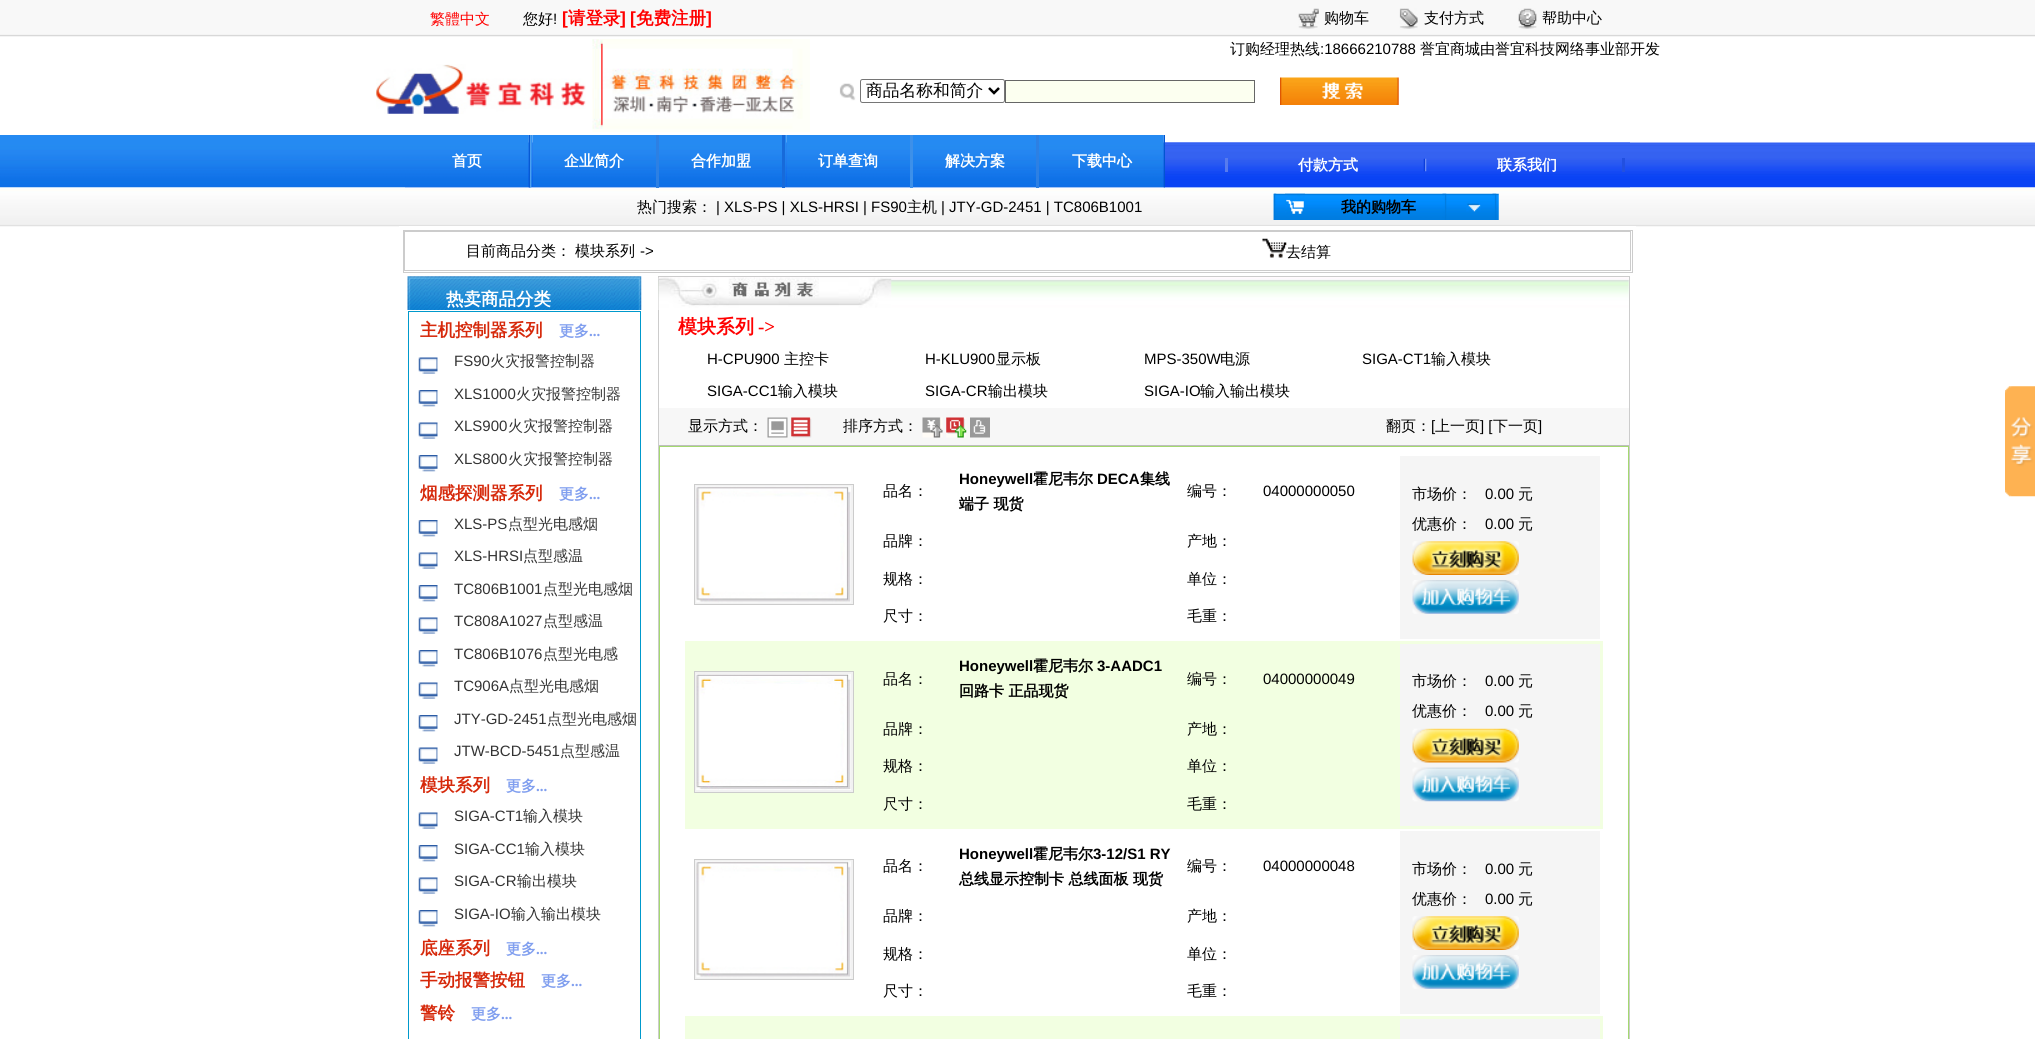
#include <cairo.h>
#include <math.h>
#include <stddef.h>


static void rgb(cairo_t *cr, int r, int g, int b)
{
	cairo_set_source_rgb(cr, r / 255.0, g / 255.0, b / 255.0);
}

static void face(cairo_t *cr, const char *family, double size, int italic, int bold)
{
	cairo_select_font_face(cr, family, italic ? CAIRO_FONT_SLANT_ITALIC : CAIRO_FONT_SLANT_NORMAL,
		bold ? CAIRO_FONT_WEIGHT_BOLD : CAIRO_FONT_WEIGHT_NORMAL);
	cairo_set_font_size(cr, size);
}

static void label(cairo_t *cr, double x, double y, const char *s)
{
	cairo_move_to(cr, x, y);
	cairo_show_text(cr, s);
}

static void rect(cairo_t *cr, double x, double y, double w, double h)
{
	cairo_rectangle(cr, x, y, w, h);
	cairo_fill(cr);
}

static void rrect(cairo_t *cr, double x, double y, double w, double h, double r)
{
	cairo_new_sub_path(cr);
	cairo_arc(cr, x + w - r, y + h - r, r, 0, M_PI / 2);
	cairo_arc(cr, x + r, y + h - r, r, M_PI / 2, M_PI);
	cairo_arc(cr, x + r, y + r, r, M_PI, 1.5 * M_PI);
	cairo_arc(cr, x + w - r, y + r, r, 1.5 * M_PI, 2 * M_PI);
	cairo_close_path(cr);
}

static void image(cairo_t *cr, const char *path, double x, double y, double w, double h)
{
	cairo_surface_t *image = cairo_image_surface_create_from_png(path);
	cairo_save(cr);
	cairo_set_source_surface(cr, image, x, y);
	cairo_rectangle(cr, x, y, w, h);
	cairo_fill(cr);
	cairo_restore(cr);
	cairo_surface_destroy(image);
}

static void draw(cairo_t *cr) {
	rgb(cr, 255, 255, 255);
	cairo_paint(cr);
	image(cr, "image0.png", 0, 0, 2035, 37);
	face(cr, "WenQuanYi Zen Hei Medium", 15, 0, 0);
	rgb(cr, 255, 0, 0);
	label(cr, 430, 24, "繁體中文");
	rgb(cr, 0, 0, 0);
	label(cr, 523, 24, "您好");
	face(cr, "Liberation Sans", 15, 0, 0);
	label(cr, 553, 24, "!");
	face(cr, "Liberation Sans", 17.5, 0, 1);
	rgb(cr, 255, 0, 0);
	label(cr, 562, 24, "[");
	face(cr, "WenQuanYi Zen Hei", 17.5, 0, 1);
	label(cr, 568, 24, "请登录");
	face(cr, "Liberation Sans", 17.5, 0, 1);
	label(cr, 620, 24, "]");
	label(cr, 630, 24, "[");
	face(cr, "WenQuanYi Zen Hei", 17.5, 0, 1);
	label(cr, 636, 24, "免费注册");
	face(cr, "Liberation Sans", 17.5, 0, 1);
	label(cr, 706, 24, "]");
	image(cr, "image1.png", 1298, 8, 21, 21);
	face(cr, "WenQuanYi Zen Hei Medium", 15, 0, 0);
	rgb(cr, 0, 0, 0);
	label(cr, 1324, 23, "购物车");
	image(cr, "image2.png", 1399, 8, 19, 21);
	label(cr, 1424, 23, "支付方式");
	image(cr, "image3.png", 1518, 8, 19, 21);
	label(cr, 1542, 23, "帮助中心");
	image(cr, "image4.png", 592, 39, 218, 93);
	label(cr, 1230, 54, "订购经理热线");
	face(cr, "Liberation Sans", 15, 0, 0);
	label(cr, 1320, 54, ":18666210788");
	face(cr, "WenQuanYi Zen Hei Medium", 15, 0, 0);
	label(cr, 1420, 54, "誉宜商城由誉宜科技网络事业部开发");
	image(cr, "image5.png", 376, 64, 210, 50);
	image(cr, "image6.png", 839, 83, 17, 18);
	rrect(cr, 860.5, 79.5, 144, 23, 2);
	rgb(cr, 118, 118, 118);
	cairo_set_line_width(cr, 1);
	cairo_stroke(cr);
	cairo_new_path(cr);
	cairo_move_to(cr, 989, 88);
	cairo_line_to(cr, 994, 93);
	cairo_line_to(cr, 999, 88);
	rgb(cr, 0, 0, 0);
	cairo_set_line_width(cr, 2.5);
	cairo_stroke(cr);
	face(cr, "WenQuanYi Zen Hei Medium", 16.75, 0, 0);
	label(cr, 866, 96, "商品名称和简介");
	rgb(cr, 252, 255, 240);
	cairo_rectangle(cr, 1005.5, 80.5, 249, 22);
	cairo_fill_preserve(cr);
	rgb(cr, 102, 102, 102);
	cairo_set_line_width(cr, 1);
	cairo_stroke(cr);
	image(cr, "image7.png", 1280, 77, 119, 28);
	image(cr, "image8.png", 0, 135, 405, 53);
	image(cr, "image9.png", 405, 142, 1225, 46);
	image(cr, "image10.png", 405, 135, 124, 53);
	face(cr, "WenQuanYi Zen Hei", 15, 0, 1);
	rgb(cr, 255, 255, 255);
	label(cr, 452, 166, "首页");
	image(cr, "image11.png", 528, 135, 5, 53);
	image(cr, "image13.png", 532, 135, 124, 53);
	image(cr, "image14.png", 659, 135, 123, 53);
	image(cr, "image15.png", 785, 135, 2, 53);
	image(cr, "image16.png", 786, 135, 124, 53);
	image(cr, "image17.png", 913, 135, 123, 53);
	image(cr, "image18.png", 1039, 135, 1, 53);
	image(cr, "image19.png", 1040, 135, 124, 53);
	image(cr, "image21.png", 1165, 142, 465, 46);
	image(cr, "image23.png", 1630, 142, 405, 46);
	image(cr, "image24.png", 0, 187, 2035, 40);
	image(cr, "image12.png", 528, 135, 4, 53);
	label(cr, 564, 166, "企业简介");
	rgb(cr, 45, 128, 227);
	rect(cr, 656, 135, 3, 53);
	rgb(cr, 255, 255, 255);
	label(cr, 691, 166, "合作加盟");
	rgb(cr, 23, 106, 218);
	rect(cr, 782, 135, 3, 53);
	rgb(cr, 255, 255, 255);
	label(cr, 818, 166, "订单查询");
	rgb(cr, 61, 144, 233);
	rect(cr, 910, 135, 3, 53);
	rgb(cr, 255, 255, 255);
	label(cr, 945, 166, "解决方案");
	rgb(cr, 45, 128, 227);
	rect(cr, 1036, 135, 3, 53);
	rgb(cr, 255, 255, 255);
	label(cr, 1072, 166, "下载中心");
	image(cr, "image20.png", 1163, 135, 2, 53);
	rgb(cr, 87, 123, 238);
	rect(cr, 1225, 158, 3, 14);
	rgb(cr, 255, 255, 255);
	label(cr, 1298, 170, "付款方式");
	image(cr, "image22.png", 1423, 158, 4, 14);
	label(cr, 1497, 170, "联系我们");
	rgb(cr, 34, 80, 224);
	rect(cr, 1622, 158, 3, 14);
	face(cr, "WenQuanYi Zen Hei Medium", 15, 0, 0);
	rgb(cr, 0, 0, 0);
	label(cr, 637, 212, "热门搜索：");
	face(cr, "Liberation Sans", 15, 0, 0);
	label(cr, 716, 212, "| XLS-PS | XLS-HRSI | FS90");
	face(cr, "WenQuanYi Zen Hei Medium", 15, 0, 0);
	label(cr, 907, 212, "主机");
	face(cr, "Liberation Sans", 15, 0, 0);
	label(cr, 941, 212, "| JTY-GD-2451 | TC806B1001");
	image(cr, "image25.png", 1273, 193, 226, 27);
	image(cr, "image26.png", 1273, 193, 4, 27);
	image(cr, "image27.png", 1285, 193, 20, 21);
	face(cr, "WenQuanYi Zen Hei", 15, 0, 1);
	label(cr, 1341, 212, "我的购物车");
	image(cr, "image28.png", 1442, 193, 5, 27);
	image(cr, "image29.png", 1466, 203, 15, 9);
	image(cr, "image28.png", 1492, 193, 5, 27);
	rgb(cr, 255, 255, 255);
	rect(cr, 399, 226, 1237, 1);
	cairo_rectangle(cr, 403.5, 230.5, 1229, 42);
	rgb(cr, 204, 204, 204);
	cairo_stroke(cr);
	cairo_rectangle(cr, 404.5, 231.5, 1226, 39);
	cairo_stroke(cr);
	face(cr, "WenQuanYi Zen Hei Medium", 15, 0, 0);
	rgb(cr, 0, 0, 0);
	label(cr, 466, 256, "目前商品分类：");
	label(cr, 575, 256, "模块系列");
	face(cr, "Liberation Sans", 15, 0, 0);
	label(cr, 640, 256, "->");
	image(cr, "image30.png", 1262, 238, 25, 20);
	face(cr, "WenQuanYi Zen Hei Medium", 15, 0, 0);
	label(cr, 1286, 257, "去结算");
	image(cr, "image31.png", 407, 276, 235, 34);
	face(cr, "WenQuanYi Zen Hei", 17.5, 0, 1);
	rgb(cr, 255, 255, 255);
	label(cr, 446, 305, "热卖商品分类");
	cairo_rectangle(cr, 408.5, 311.5, 232, 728);
	rgb(cr, 0, 153, 204);
	cairo_stroke(cr);
	rgb(cr, 214, 41, 11);
	label(cr, 420, 336, "主机控制器系列");
	face(cr, "WenQuanYi Zen Hei", 15, 0, 1);
	rgb(cr, 129, 159, 239);
	label(cr, 559, 336, "更多");
	face(cr, "Liberation Serif", 15, 0, 1);
	label(cr, 589, 336, "...");
	image(cr, "image32.png", 418, 357, 20, 17);
	face(cr, "Liberation Sans", 15, 0, 0);
	rgb(cr, 51, 51, 51);
	label(cr, 454, 366, "FS90");
	face(cr, "WenQuanYi Zen Hei Medium", 15, 0, 0);
	label(cr, 490, 366, "火灾报警控制器");
	image(cr, "image33.png", 418, 390, 20, 17);
	face(cr, "Liberation Sans", 15, 0, 0);
	label(cr, 454, 399, "XLS1000");
	face(cr, "WenQuanYi Zen Hei Medium", 15, 0, 0);
	label(cr, 516, 399, "火灾报警控制器");
	image(cr, "image32.png", 418, 422, 20, 17);
	face(cr, "Liberation Sans", 15, 0, 0);
	label(cr, 454, 431, "XLS900");
	face(cr, "WenQuanYi Zen Hei Medium", 15, 0, 0);
	label(cr, 508, 431, "火灾报警控制器");
	image(cr, "image33.png", 418, 455, 20, 17);
	face(cr, "Liberation Sans", 15, 0, 0);
	label(cr, 454, 464, "XLS800");
	face(cr, "WenQuanYi Zen Hei Medium", 15, 0, 0);
	label(cr, 508, 464, "火灾报警控制器");
	face(cr, "WenQuanYi Zen Hei", 17.5, 0, 1);
	rgb(cr, 214, 41, 11);
	label(cr, 420, 499, "烟感探测器系列");
	face(cr, "WenQuanYi Zen Hei", 15, 0, 1);
	rgb(cr, 129, 159, 239);
	label(cr, 559, 499, "更多");
	face(cr, "Liberation Serif", 15, 0, 1);
	label(cr, 589, 499, "...");
	image(cr, "image33.png", 418, 520, 20, 17);
	face(cr, "Liberation Sans", 15, 0, 0);
	rgb(cr, 51, 51, 51);
	label(cr, 454, 529, "XLS-PS");
	face(cr, "WenQuanYi Zen Hei Medium", 15, 0, 0);
	label(cr, 508, 529, "点型光电感烟");
	image(cr, "image32.png", 418, 552, 20, 17);
	face(cr, "Liberation Sans", 15, 0, 0);
	label(cr, 454, 561, "XLS-HRSI");
	face(cr, "WenQuanYi Zen Hei Medium", 15, 0, 0);
	label(cr, 523, 561, "点型感温");
	image(cr, "image34.png", 418, 585, 20, 17);
	face(cr, "Liberation Sans", 15, 0, 0);
	label(cr, 454, 594, "TC806B1001");
	face(cr, "WenQuanYi Zen Hei Medium", 15, 0, 0);
	label(cr, 543, 594, "点型光电感烟");
	image(cr, "image32.png", 418, 617, 20, 17);
	face(cr, "Liberation Sans", 15, 0, 0);
	label(cr, 454, 626, "TC808A1027");
	face(cr, "WenQuanYi Zen Hei Medium", 15, 0, 0);
	label(cr, 543, 626, "点型感温");
	image(cr, "image33.png", 418, 650, 20, 17);
	face(cr, "Liberation Sans", 15, 0, 0);
	label(cr, 454, 659, "TC806B1076");
	face(cr, "WenQuanYi Zen Hei Medium", 15, 0, 0);
	label(cr, 543, 659, "点型光电感");
	image(cr, "image32.png", 418, 682, 20, 17);
	face(cr, "Liberation Sans", 15, 0, 0);
	label(cr, 454, 691, "TC906A");
	face(cr, "WenQuanYi Zen Hei Medium", 15, 0, 0);
	label(cr, 509, 691, "点型光电感烟");
	image(cr, "image33.png", 418, 715, 20, 17);
	face(cr, "Liberation Sans", 15, 0, 0);
	label(cr, 454, 724, "JTY-GD-2451");
	face(cr, "WenQuanYi Zen Hei Medium", 15, 0, 0);
	label(cr, 547, 724, "点型光电感烟");
	image(cr, "image32.png", 418, 747, 20, 17);
	face(cr, "Liberation Sans", 15, 0, 0);
	label(cr, 454, 756, "JTW-BCD-5451");
	face(cr, "WenQuanYi Zen Hei Medium", 15, 0, 0);
	label(cr, 560, 756, "点型感温");
	face(cr, "WenQuanYi Zen Hei", 17.5, 0, 1);
	rgb(cr, 214, 41, 11);
	label(cr, 420, 791, "模块系列");
	face(cr, "WenQuanYi Zen Hei", 15, 0, 1);
	rgb(cr, 129, 159, 239);
	label(cr, 506, 791, "更多");
	face(cr, "Liberation Serif", 15, 0, 1);
	label(cr, 536, 791, "...");
	image(cr, "image32.png", 418, 812, 20, 17);
	face(cr, "Liberation Sans", 15, 0, 0);
	rgb(cr, 51, 51, 51);
	label(cr, 454, 821, "SIGA-CT1");
	face(cr, "WenQuanYi Zen Hei Medium", 15, 0, 0);
	label(cr, 523, 821, "输入模块");
	image(cr, "image33.png", 418, 845, 20, 17);
	face(cr, "Liberation Sans", 15, 0, 0);
	label(cr, 454, 854, "SIGA-CC1");
	face(cr, "WenQuanYi Zen Hei Medium", 15, 0, 0);
	label(cr, 525, 854, "输入模块");
	image(cr, "image32.png", 418, 877, 20, 17);
	face(cr, "Liberation Sans", 15, 0, 0);
	label(cr, 454, 886, "SIGA-CR");
	face(cr, "WenQuanYi Zen Hei Medium", 15, 0, 0);
	label(cr, 517, 886, "输出模块");
	image(cr, "image33.png", 418, 910, 20, 17);
	face(cr, "Liberation Sans", 15, 0, 0);
	label(cr, 454, 919, "SIGA-IO");
	face(cr, "WenQuanYi Zen Hei Medium", 15, 0, 0);
	label(cr, 511, 919, "输入输出模块");
	face(cr, "WenQuanYi Zen Hei", 17.5, 0, 1);
	rgb(cr, 214, 41, 11);
	label(cr, 420, 954, "底座系列");
	face(cr, "WenQuanYi Zen Hei", 15, 0, 1);
	rgb(cr, 129, 159, 239);
	label(cr, 506, 954, "更多");
	face(cr, "Liberation Serif", 15, 0, 1);
	label(cr, 536, 954, "...");
	face(cr, "WenQuanYi Zen Hei", 17.5, 0, 1);
	rgb(cr, 214, 41, 11);
	label(cr, 420, 986, "手动报警按钮");
	face(cr, "WenQuanYi Zen Hei", 15, 0, 1);
	rgb(cr, 129, 159, 239);
	label(cr, 541, 986, "更多");
	face(cr, "Liberation Serif", 15, 0, 1);
	label(cr, 571, 986, "...");
	face(cr, "WenQuanYi Zen Hei", 17.5, 0, 1);
	rgb(cr, 214, 41, 11);
	label(cr, 420, 1019, "警铃");
	face(cr, "WenQuanYi Zen Hei", 15, 0, 1);
	rgb(cr, 129, 159, 239);
	label(cr, 471, 1019, "更多");
	face(cr, "Liberation Serif", 15, 0, 1);
	label(cr, 501, 1019, "...");
	cairo_rectangle(cr, 658.5, 276.5, 971, 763);
	rgb(cr, 204, 204, 204);
	cairo_stroke(cr);
	image(cr, "image35.png", 658, 277, 971, 33);
	image(cr, "image36.png", 658, 277, 234, 33);
	face(cr, "WenQuanYi Zen Hei", 19, 0, 1);
	rgb(cr, 255, 0, 0);
	label(cr, 678, 333, "模块系列");
	face(cr, "Liberation Serif", 19, 0, 1);
	label(cr, 758, 333, "->");
	face(cr, "Liberation Sans", 15, 0, 0);
	rgb(cr, 0, 0, 0);
	label(cr, 707, 364, "H-CPU900");
	face(cr, "WenQuanYi Zen Hei Medium", 15, 0, 0);
	label(cr, 784, 364, "主控卡");
	face(cr, "Liberation Sans", 15, 0, 0);
	label(cr, 925, 364, "H-KLU900");
	face(cr, "WenQuanYi Zen Hei Medium", 15, 0, 0);
	label(cr, 996, 364, "显示板");
	face(cr, "Liberation Sans", 15, 0, 0);
	label(cr, 1144, 364, "MPS-350W");
	face(cr, "WenQuanYi Zen Hei Medium", 15, 0, 0);
	label(cr, 1220, 364, "电源");
	face(cr, "Liberation Sans", 15, 0, 0);
	label(cr, 1362, 364, "SIGA-CT1");
	face(cr, "WenQuanYi Zen Hei Medium", 15, 0, 0);
	label(cr, 1431, 364, "输入模块");
	face(cr, "Liberation Sans", 15, 0, 0);
	label(cr, 707, 396, "SIGA-CC1");
	face(cr, "WenQuanYi Zen Hei Medium", 15, 0, 0);
	label(cr, 778, 396, "输入模块");
	face(cr, "Liberation Sans", 15, 0, 0);
	label(cr, 925, 396, "SIGA-CR");
	face(cr, "WenQuanYi Zen Hei Medium", 15, 0, 0);
	label(cr, 988, 396, "输出模块");
	face(cr, "Liberation Sans", 15, 0, 0);
	label(cr, 1144, 396, "SIGA-IO");
	face(cr, "WenQuanYi Zen Hei Medium", 15, 0, 0);
	label(cr, 1200, 396, "输入输出模块");
	rgb(cr, 247, 247, 247);
	rect(cr, 659, 408, 970, 37);
	rgb(cr, 0, 0, 0);
	label(cr, 688, 431, "显示方式：");
	image(cr, "image37.png", 767, 417, 21, 21);
	image(cr, "image38.png", 791, 417, 21, 21);
	label(cr, 843, 431, "排序方式：");
	image(cr, "image39.png", 922, 417, 21, 21);
	image(cr, "image40.png", 946, 417, 21, 21);
	image(cr, "image41.png", 970, 417, 20, 21);
	label(cr, 1386, 431, "翻页：");
	face(cr, "Liberation Sans", 15, 0, 0);
	label(cr, 1431, 431, "[");
	face(cr, "WenQuanYi Zen Hei Medium", 15, 0, 0);
	label(cr, 1435, 431, "上一页");
	face(cr, "Liberation Sans", 15, 0, 0);
	label(cr, 1480, 431, "] [");
	face(cr, "WenQuanYi Zen Hei Medium", 15, 0, 0);
	label(cr, 1493, 431, "下一页");
	face(cr, "Liberation Sans", 15, 0, 0);
	label(cr, 1538, 431, "]");
	rgb(cr, 190, 190, 190);
	rect(cr, 659, 445, 970, 1);
	cairo_rectangle(cr, 659.5, 446.5, 969, 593);
	rgb(cr, 164, 217, 112);
	cairo_stroke(cr);
	rgb(cr, 242, 242, 242);
	cairo_rectangle(cr, 694.5, 484.5, 159, 120);
	cairo_fill_preserve(cr);
	rgb(cr, 204, 204, 204);
	cairo_stroke(cr);
	image(cr, "image42.png", 696, 486, 155, 117);
	face(cr, "WenQuanYi Zen Hei Medium", 15, 0, 0);
	rgb(cr, 0, 0, 0);
	label(cr, 883, 496, "品名：");
	face(cr, "Liberation Sans", 15, 0, 1);
	label(cr, 959, 484, "Honeywell");
	face(cr, "WenQuanYi Zen Hei", 15, 0, 1);
	label(cr, 1033, 484, "霍尼韦尔");
	face(cr, "Liberation Sans", 15, 0, 1);
	label(cr, 1097, 484, "DECA");
	face(cr, "WenQuanYi Zen Hei", 15, 0, 1);
	label(cr, 1140, 484, "集线");
	label(cr, 959, 509, "端子 现货");
	face(cr, "WenQuanYi Zen Hei Medium", 15, 0, 0);
	label(cr, 1187, 496, "编号：");
	face(cr, "Liberation Sans", 15, 0, 0);
	label(cr, 1263, 496, "04000000050");
	face(cr, "WenQuanYi Zen Hei Medium", 15, 0, 0);
	label(cr, 883, 546, "品牌：");
	label(cr, 1187, 546, "产地：");
	label(cr, 883, 584, "规格：");
	label(cr, 1187, 584, "单位：");
	label(cr, 883, 621, "尺寸：");
	label(cr, 1187, 621, "毛重：");
	rgb(cr, 245, 245, 245);
	rect(cr, 1400, 456, 200, 183);
	rgb(cr, 0, 0, 0);
	label(cr, 1412, 499, "市场价：");
	face(cr, "Liberation Sans", 15, 0, 0);
	label(cr, 1485, 499, "0.00");
	face(cr, "WenQuanYi Zen Hei Medium", 15, 0, 0);
	label(cr, 1518, 499, "元");
	label(cr, 1412, 529, "优惠价：");
	face(cr, "Liberation Sans", 15, 0, 0);
	label(cr, 1485, 529, "0.00");
	face(cr, "WenQuanYi Zen Hei Medium", 15, 0, 0);
	label(cr, 1518, 529, "元");
	image(cr, "image43.png", 1412, 541, 107, 34);
	image(cr, "image44.png", 1412, 580, 107, 34);
	rgb(cr, 242, 255, 225);
	rect(cr, 685, 641, 918, 188);
	rgb(cr, 242, 242, 242);
	cairo_rectangle(cr, 694.5, 671.5, 159, 121);
	cairo_fill_preserve(cr);
	rgb(cr, 204, 204, 204);
	cairo_stroke(cr);
	image(cr, "image45.png", 696, 674, 155, 116);
	rgb(cr, 0, 0, 0);
	label(cr, 883, 684, "品名：");
	face(cr, "Liberation Sans", 15, 0, 1);
	label(cr, 959, 671, "Honeywell");
	face(cr, "WenQuanYi Zen Hei", 15, 0, 1);
	label(cr, 1033, 671, "霍尼韦尔");
	face(cr, "Liberation Sans", 15, 0, 1);
	label(cr, 1097, 671, "3-AADC1");
	face(cr, "WenQuanYi Zen Hei", 15, 0, 1);
	label(cr, 959, 696, "回路卡 正品现货");
	face(cr, "WenQuanYi Zen Hei Medium", 15, 0, 0);
	label(cr, 1187, 684, "编号：");
	face(cr, "Liberation Sans", 15, 0, 0);
	label(cr, 1263, 684, "04000000049");
	face(cr, "WenQuanYi Zen Hei Medium", 15, 0, 0);
	label(cr, 883, 734, "品牌：");
	label(cr, 1187, 734, "产地：");
	label(cr, 883, 771, "规格：");
	label(cr, 1187, 771, "单位：");
	label(cr, 883, 809, "尺寸：");
	label(cr, 1187, 809, "毛重：");
	rgb(cr, 245, 245, 245);
	rect(cr, 1400, 644, 200, 182);
	rgb(cr, 0, 0, 0);
	label(cr, 1412, 686, "市场价：");
	face(cr, "Liberation Sans", 15, 0, 0);
	label(cr, 1485, 686, "0.00");
	face(cr, "WenQuanYi Zen Hei Medium", 15, 0, 0);
	label(cr, 1518, 686, "元");
	label(cr, 1412, 716, "优惠价：");
	face(cr, "Liberation Sans", 15, 0, 0);
	label(cr, 1485, 716, "0.00");
	face(cr, "WenQuanYi Zen Hei Medium", 15, 0, 0);
	label(cr, 1518, 716, "元");
	image(cr, "image46.png", 1412, 728, 107, 35);
	image(cr, "image47.png", 1412, 767, 107, 35);
	rgb(cr, 242, 242, 242);
	cairo_rectangle(cr, 694.5, 859.5, 159, 120);
	cairo_fill_preserve(cr);
	rgb(cr, 204, 204, 204);
	cairo_stroke(cr);
	image(cr, "image42.png", 696, 861, 155, 117);
	rgb(cr, 0, 0, 0);
	label(cr, 883, 871, "品名：");
	face(cr, "Liberation Sans", 15, 0, 1);
	label(cr, 959, 859, "Honeywell");
	face(cr, "WenQuanYi Zen Hei", 15, 0, 1);
	label(cr, 1033, 859, "霍尼韦尔");
	face(cr, "Liberation Sans", 15, 0, 1);
	label(cr, 1093, 859, "3-12/S1 RY");
	face(cr, "WenQuanYi Zen Hei", 15, 0, 1);
	label(cr, 959, 884, "总线显示控制卡 总线面板 现货");
	face(cr, "WenQuanYi Zen Hei Medium", 15, 0, 0);
	label(cr, 1187, 871, "编号：");
	face(cr, "Liberation Sans", 15, 0, 0);
	label(cr, 1263, 871, "04000000048");
	face(cr, "WenQuanYi Zen Hei Medium", 15, 0, 0);
	label(cr, 883, 921, "品牌：");
	label(cr, 1187, 921, "产地：");
	label(cr, 883, 959, "规格：");
	label(cr, 1187, 959, "单位：");
	label(cr, 883, 996, "尺寸：");
	label(cr, 1187, 996, "毛重：");
	rgb(cr, 245, 245, 245);
	rect(cr, 1400, 831, 200, 183);
	rgb(cr, 0, 0, 0);
	label(cr, 1412, 874, "市场价：");
	face(cr, "Liberation Sans", 15, 0, 0);
	label(cr, 1485, 874, "0.00");
	face(cr, "WenQuanYi Zen Hei Medium", 15, 0, 0);
	label(cr, 1518, 874, "元");
	label(cr, 1412, 904, "优惠价：");
	face(cr, "Liberation Sans", 15, 0, 0);
	label(cr, 1485, 904, "0.00");
	face(cr, "WenQuanYi Zen Hei Medium", 15, 0, 0);
	label(cr, 1518, 904, "元");
	image(cr, "image43.png", 1412, 916, 107, 34);
	image(cr, "image48.png", 1412, 955, 107, 34);
	rgb(cr, 242, 255, 225);
	rect(cr, 685, 1016, 918, 23);
	rgb(cr, 245, 245, 245);
	rect(cr, 1400, 1019, 200, 20);
	image(cr, "image49.png", 2005, 386, 30, 111);
}

int main(void) {
	cairo_surface_t *surface = cairo_image_surface_create(CAIRO_FORMAT_RGB24, 2035, 1039);
	cairo_t *cr = cairo_create(surface);
	cairo_font_options_t *options = cairo_font_options_create();
	cairo_font_options_set_hint_metrics(options, CAIRO_HINT_METRICS_OFF);
	cairo_font_options_set_hint_style(options, CAIRO_HINT_STYLE_NONE);
	cairo_set_font_options(cr, options);
	cairo_set_miter_limit(cr, 4);
	draw(cr);
	cairo_surface_write_to_png(surface, "render.png");
	cairo_font_options_destroy(options);
	cairo_destroy(cr);
	cairo_surface_destroy(surface);
	return 0;
}
